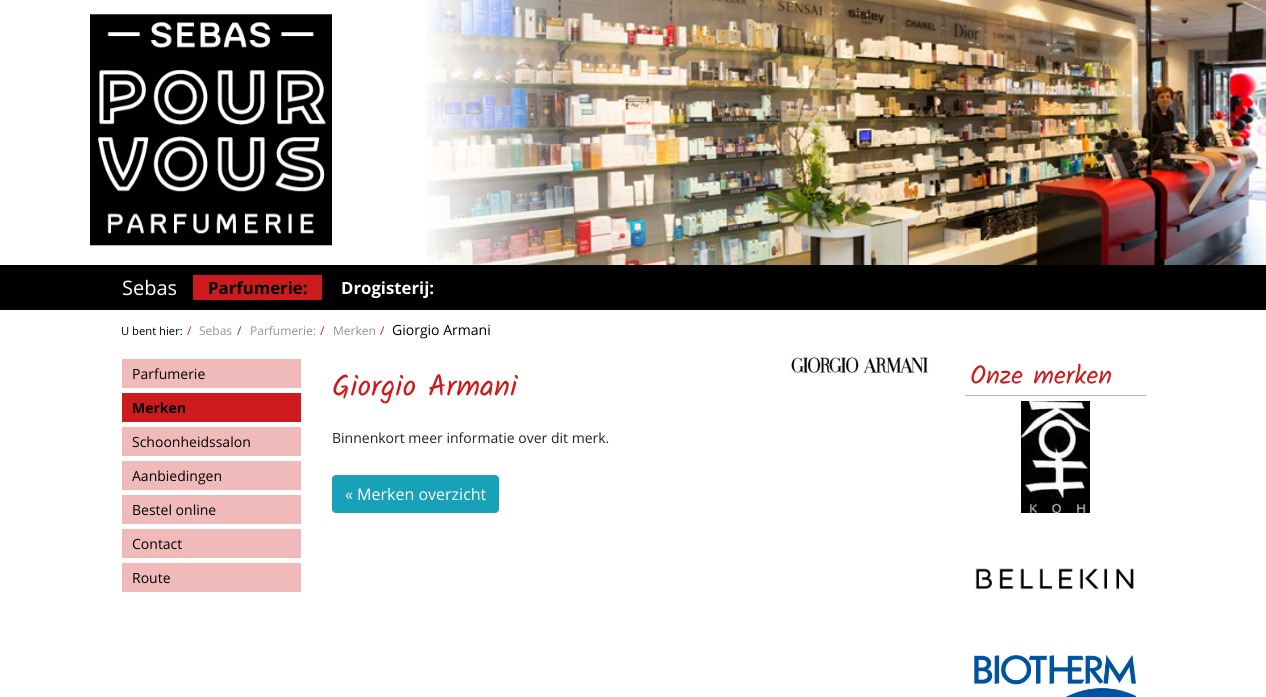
#include <cairo.h>
#include <math.h>
#include <stddef.h>


static void rgb(cairo_t *cr, int r, int g, int b)
{
	cairo_set_source_rgb(cr, r / 255.0, g / 255.0, b / 255.0);
}

static void face(cairo_t *cr, const char *family, double size, int italic, int bold)
{
	cairo_select_font_face(cr, family, italic ? CAIRO_FONT_SLANT_ITALIC : CAIRO_FONT_SLANT_NORMAL,
		bold ? CAIRO_FONT_WEIGHT_BOLD : CAIRO_FONT_WEIGHT_NORMAL);
	cairo_set_font_size(cr, size);
}

static void label(cairo_t *cr, double x, double y, const char *s)
{
	cairo_move_to(cr, x, y);
	cairo_show_text(cr, s);
}

static void rect(cairo_t *cr, double x, double y, double w, double h)
{
	cairo_rectangle(cr, x, y, w, h);
	cairo_fill(cr);
}

static void rrect(cairo_t *cr, double x, double y, double w, double h, double r)
{
	cairo_new_sub_path(cr);
	cairo_arc(cr, x + w - r, y + h - r, r, 0, M_PI / 2);
	cairo_arc(cr, x + r, y + h - r, r, M_PI / 2, M_PI);
	cairo_arc(cr, x + r, y + r, r, M_PI, 1.5 * M_PI);
	cairo_arc(cr, x + w - r, y + r, r, 1.5 * M_PI, 2 * M_PI);
	cairo_close_path(cr);
}

static void image(cairo_t *cr, const char *path, double x, double y, double w, double h)
{
	cairo_surface_t *image = cairo_image_surface_create_from_png(path);
	cairo_save(cr);
	cairo_set_source_surface(cr, image, x, y);
	cairo_rectangle(cr, x, y, w, h);
	cairo_fill(cr);
	cairo_restore(cr);
	cairo_surface_destroy(image);
}

static void draw(cairo_t *cr) {
	rgb(cr, 255, 255, 255);
	cairo_paint(cr);
	image(cr, "image0.png", 90, 14, 242, 232);
	image(cr, "image1.png", 425, 0, 841, 265);
	rgb(cr, 0, 0, 0);
	rect(cr, 0, 265, 1266, 45);
	face(cr, "Open Sans", 20, 0, 0);
	rgb(cr, 255, 255, 255);
	label(cr, 122, 295, "Sebas");
	rgb(cr, 205, 26, 29);
	rect(cr, 193, 275, 129, 25);
	face(cr, "Open Sans", 16.75, 0, 1);
	rgb(cr, 0, 0, 0);
	label(cr, 208, 294, "Parfumerie:");
	rgb(cr, 255, 255, 255);
	label(cr, 341, 294, "Drogisterij:");
	face(cr, "Open Sans", 11.25, 0, 0);
	rgb(cr, 0, 0, 0);
	label(cr, 121, 335, "U bent hier:");
	face(cr, "Open Sans", 12, 0, 0);
	rgb(cr, 205, 26, 29);
	label(cr, 187, 335, "/");
	rgb(cr, 145, 145, 145);
	label(cr, 199, 335, "Sebas");
	rgb(cr, 205, 26, 29);
	label(cr, 237, 335, "/");
	rgb(cr, 145, 145, 145);
	label(cr, 250, 335, "Parfumerie:");
	rgb(cr, 205, 26, 29);
	label(cr, 320, 335, "/");
	rgb(cr, 145, 145, 145);
	label(cr, 333, 335, "Merken");
	rgb(cr, 205, 26, 29);
	label(cr, 380, 335, "/");
	face(cr, "Open Sans", 14, 0, 0);
	rgb(cr, 0, 0, 0);
	label(cr, 392, 335, "Giorgio Armani");
	rgb(cr, 240, 186, 187);
	rect(cr, 122, 359, 179, 29);
	rgb(cr, 0, 0, 0);
	label(cr, 132, 379, "Parfumerie");
	rgb(cr, 205, 26, 29);
	rect(cr, 122, 393, 179, 29);
	face(cr, "Open Sans", 14, 0, 1);
	rgb(cr, 0, 0, 0);
	label(cr, 132, 413, "Merken");
	rgb(cr, 240, 186, 187);
	rect(cr, 122, 427, 179, 29);
	face(cr, "Open Sans", 14, 0, 0);
	rgb(cr, 0, 0, 0);
	label(cr, 132, 447, "Schoonheidssalon");
	rgb(cr, 240, 186, 187);
	rect(cr, 122, 461, 179, 29);
	rgb(cr, 0, 0, 0);
	label(cr, 132, 481, "Aanbiedingen");
	rgb(cr, 240, 186, 187);
	rect(cr, 122, 495, 179, 29);
	rgb(cr, 0, 0, 0);
	label(cr, 132, 515, "Bestel online");
	rgb(cr, 240, 186, 187);
	rect(cr, 122, 529, 179, 29);
	rgb(cr, 0, 0, 0);
	label(cr, 132, 549, "Contact");
	rgb(cr, 240, 186, 187);
	rect(cr, 122, 563, 179, 29);
	rgb(cr, 0, 0, 0);
	label(cr, 132, 583, "Route");
	image(cr, "image2.png", 790, 355, 140, 21);
	face(cr, "Kalam", 30, 0, 0);
	rgb(cr, 205, 26, 29);
	label(cr, 332, 396, "Giorgio Armani");
	face(cr, "Open Sans", 14, 0, 0);
	rgb(cr, 34, 34, 34);
	label(cr, 332, 443, "Binnenkort meer informatie over dit merk.");
	rgb(cr, 23, 162, 184);
	rrect(cr, 332.5, 475.5, 166, 37, 3.5);
	cairo_fill_preserve(cr);
	cairo_set_line_width(cr, 1);
	cairo_stroke(cr);
	face(cr, "Open Sans", 16, 0, 0);
	rgb(cr, 255, 255, 255);
	label(cr, 345, 500, "« Merken overzicht");
	rgb(cr, 179, 179, 179);
	rect(cr, 965, 395, 181, 1);
	face(cr, "Kalam", 26, 0, 0);
	rgb(cr, 205, 26, 29);
	label(cr, 970, 384, "Onze merken");
	image(cr, "image3.png", 1021, 401, 69, 112);
	image(cr, "image4.png", 975, 568, 159, 22);
	image(cr, "image5.png", 974, 655, 162, 42);
}

int main(void) {
	cairo_surface_t *surface = cairo_image_surface_create(CAIRO_FORMAT_RGB24, 1266, 697);
	cairo_t *cr = cairo_create(surface);
	cairo_font_options_t *options = cairo_font_options_create();
	cairo_font_options_set_hint_metrics(options, CAIRO_HINT_METRICS_OFF);
	cairo_font_options_set_hint_style(options, CAIRO_HINT_STYLE_NONE);
	cairo_set_font_options(cr, options);
	cairo_set_miter_limit(cr, 4);
	draw(cr);
	cairo_surface_write_to_png(surface, "render.png");
	cairo_font_options_destroy(options);
	cairo_destroy(cr);
	cairo_surface_destroy(surface);
	return 0;
}
